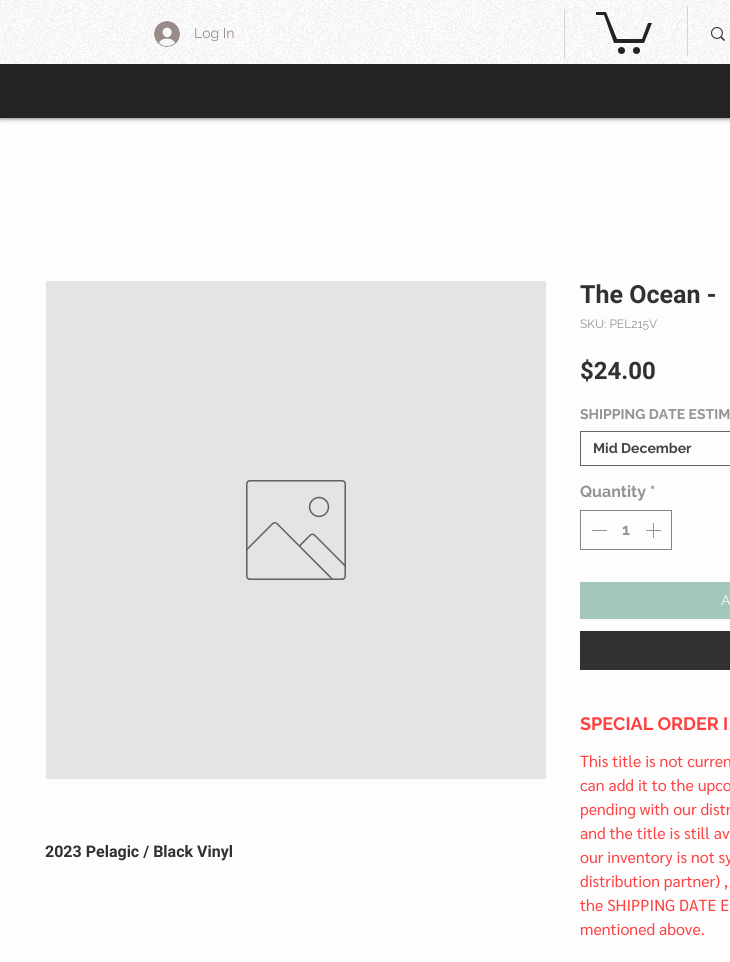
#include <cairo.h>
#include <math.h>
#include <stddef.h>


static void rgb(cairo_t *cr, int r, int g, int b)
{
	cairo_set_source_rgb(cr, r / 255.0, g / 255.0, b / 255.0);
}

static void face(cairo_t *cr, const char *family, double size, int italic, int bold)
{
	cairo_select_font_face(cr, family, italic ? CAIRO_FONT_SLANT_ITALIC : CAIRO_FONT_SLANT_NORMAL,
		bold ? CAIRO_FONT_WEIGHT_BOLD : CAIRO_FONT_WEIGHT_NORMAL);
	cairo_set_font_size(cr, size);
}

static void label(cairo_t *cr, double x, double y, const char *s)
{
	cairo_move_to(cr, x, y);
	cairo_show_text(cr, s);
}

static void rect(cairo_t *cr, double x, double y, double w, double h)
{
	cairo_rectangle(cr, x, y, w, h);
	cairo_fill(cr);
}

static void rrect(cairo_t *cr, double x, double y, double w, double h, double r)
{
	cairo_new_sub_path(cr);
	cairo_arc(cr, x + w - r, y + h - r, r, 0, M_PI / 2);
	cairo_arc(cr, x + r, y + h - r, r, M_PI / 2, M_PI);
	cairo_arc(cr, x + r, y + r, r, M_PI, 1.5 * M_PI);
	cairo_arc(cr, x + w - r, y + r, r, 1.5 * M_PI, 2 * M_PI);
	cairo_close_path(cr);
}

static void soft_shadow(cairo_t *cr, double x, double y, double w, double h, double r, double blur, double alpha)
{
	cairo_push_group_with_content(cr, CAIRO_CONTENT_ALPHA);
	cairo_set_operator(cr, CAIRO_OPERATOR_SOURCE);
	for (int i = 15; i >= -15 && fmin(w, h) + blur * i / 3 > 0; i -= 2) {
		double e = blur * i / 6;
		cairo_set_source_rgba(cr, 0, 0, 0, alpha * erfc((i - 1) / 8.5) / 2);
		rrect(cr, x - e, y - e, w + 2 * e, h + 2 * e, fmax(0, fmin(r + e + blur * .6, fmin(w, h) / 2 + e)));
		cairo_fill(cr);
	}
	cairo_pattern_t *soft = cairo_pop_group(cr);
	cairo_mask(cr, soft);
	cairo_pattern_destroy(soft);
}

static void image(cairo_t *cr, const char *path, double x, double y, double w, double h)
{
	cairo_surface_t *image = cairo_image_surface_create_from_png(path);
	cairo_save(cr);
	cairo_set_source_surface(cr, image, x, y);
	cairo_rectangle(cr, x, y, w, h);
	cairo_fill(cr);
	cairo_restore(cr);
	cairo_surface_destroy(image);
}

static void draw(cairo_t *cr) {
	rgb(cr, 253, 253, 253);
	cairo_paint(cr);
	rgb(cr, 0, 0, 0);
	soft_shadow(cr, 0, 0, 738, 118, 0, 2.5, 0.7);
	rgb(cr, 255, 255, 255);
	rect(cr, 0, 0, 730, 64);
	image(cr, "image0.png", 0, 0, 730, 64);
	image(cr, "image1.png", 154, 21, 26, 26);
	face(cr, "Raleway", 14, 0, 0);
	rgb(cr, 153, 140, 136);
	label(cr, 194, 38, "Log In");
	cairo_set_source_rgba(cr, 0.576, 0.576, 0.576, 0.35);
	rect(cr, 564, 9, 1, 50);
	rgb(cr, 36, 35, 35);
	cairo_new_path(cr);
	cairo_move_to(cr, 652, 23);
	cairo_line_to(cr, 644, 43);
	cairo_line_to(cr, 614, 43);
	cairo_line_to(cr, 604, 15);
	cairo_line_to(cr, 596, 15);
	cairo_line_to(cr, 596, 12);
	cairo_line_to(cr, 606, 12);
	cairo_line_to(cr, 617, 39);
	cairo_line_to(cr, 642, 39);
	cairo_line_to(cr, 648, 23);
	cairo_fill(cr);
	cairo_arc(cr, 636.5, 50.5, 3.5, 0, 2 * M_PI);
	cairo_fill(cr);
	cairo_arc(cr, 621.5, 50.5, 3.5, 0, 2 * M_PI);
	cairo_fill(cr);
	cairo_set_source_rgba(cr, 0.576, 0.576, 0.576, 0.35);
	rect(cr, 687, 6, 1, 50);
	image(cr, "image2.png", 711, 27, 14, 14);
	rgb(cr, 36, 35, 35);
	rect(cr, 0, 64, 730, 54);
	rgb(cr, 228, 228, 228);
	rect(cr, 46, 281, 500, 498);
	image(cr, "image3.png", 246, 480, 100, 100);
	face(cr, "Roboto", 16, 0, 1);
	rgb(cr, 49, 49, 49);
	label(cr, 45, 857, "2023 Pelagic / Black Vinyl");
	face(cr, "Roboto", 25, 0, 1);
	label(cr, 580, 303, "The Ocean -");
	face(cr, "Raleway", 12, 0, 0);
	rgb(cr, 147, 147, 147);
	label(cr, 580, 328, "SKU: PEL215V");
	face(cr, "Roboto", 24, 0, 1);
	rgb(cr, 49, 49, 49);
	label(cr, 580, 379, "$24.00");
	face(cr, "Raleway", 14, 0, 1);
	rgb(cr, 147, 147, 147);
	label(cr, 580, 419, "SHIPPING DATE ESTIM");
	cairo_rectangle(cr, 580.5, 431.5, 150, 34);
	rgb(cr, 102, 102, 102);
	cairo_set_line_width(cr, 1);
	cairo_stroke(cr);
	rgb(cr, 68, 68, 68);
	label(cr, 593, 453, "Mid December");
	face(cr, "Raleway", 16, 0, 1);
	rgb(cr, 147, 147, 147);
	label(cr, 580, 497, "Quantity *");
	cairo_rectangle(cr, 580.5, 510.5, 91, 39);
	rgb(cr, 131, 131, 131);
	cairo_stroke(cr);
	rgb(cr, 147, 147, 147);
	rect(cr, 592, 530, 15, 1);
	label(cr, 622, 535, "1");
	image(cr, "image4.png", 646, 523, 15, 15);
	rgb(cr, 163, 199, 189);
	rect(cr, 580, 582, 150, 37);
	face(cr, "Raleway", 14, 0, 0);
	rgb(cr, 253, 253, 253);
	label(cr, 721, 605, "A");
	rgb(cr, 49, 49, 49);
	rect(cr, 580, 631, 150, 39);
	face(cr, "Raleway", 18, 0, 1);
	rgb(cr, 255, 64, 64);
	label(cr, 580, 730, "SPECIAL ORDER I");
	face(cr, "Sarabun", 16, 0, 0);
	label(cr, 580, 767, "This title is not curren");
	label(cr, 580, 791, "can add it to the upco");
	label(cr, 580, 815, "pending with our distr");
	label(cr, 580, 839, "and the title is still av");
	label(cr, 580, 863, "our inventory is not sy");
	label(cr, 580, 887, "distribution partner) ,");
	label(cr, 580, 911, "the SHIPPING DATE E");
	label(cr, 580, 935, "mentioned above.");
}

int main(void) {
	cairo_surface_t *surface = cairo_image_surface_create(CAIRO_FORMAT_RGB24, 730, 962);
	cairo_t *cr = cairo_create(surface);
	cairo_font_options_t *options = cairo_font_options_create();
	cairo_font_options_set_hint_metrics(options, CAIRO_HINT_METRICS_OFF);
	cairo_font_options_set_hint_style(options, CAIRO_HINT_STYLE_NONE);
	cairo_set_font_options(cr, options);
	cairo_set_miter_limit(cr, 4);
	draw(cr);
	cairo_surface_write_to_png(surface, "render.png");
	cairo_font_options_destroy(options);
	cairo_destroy(cr);
	cairo_surface_destroy(surface);
	return 0;
}
